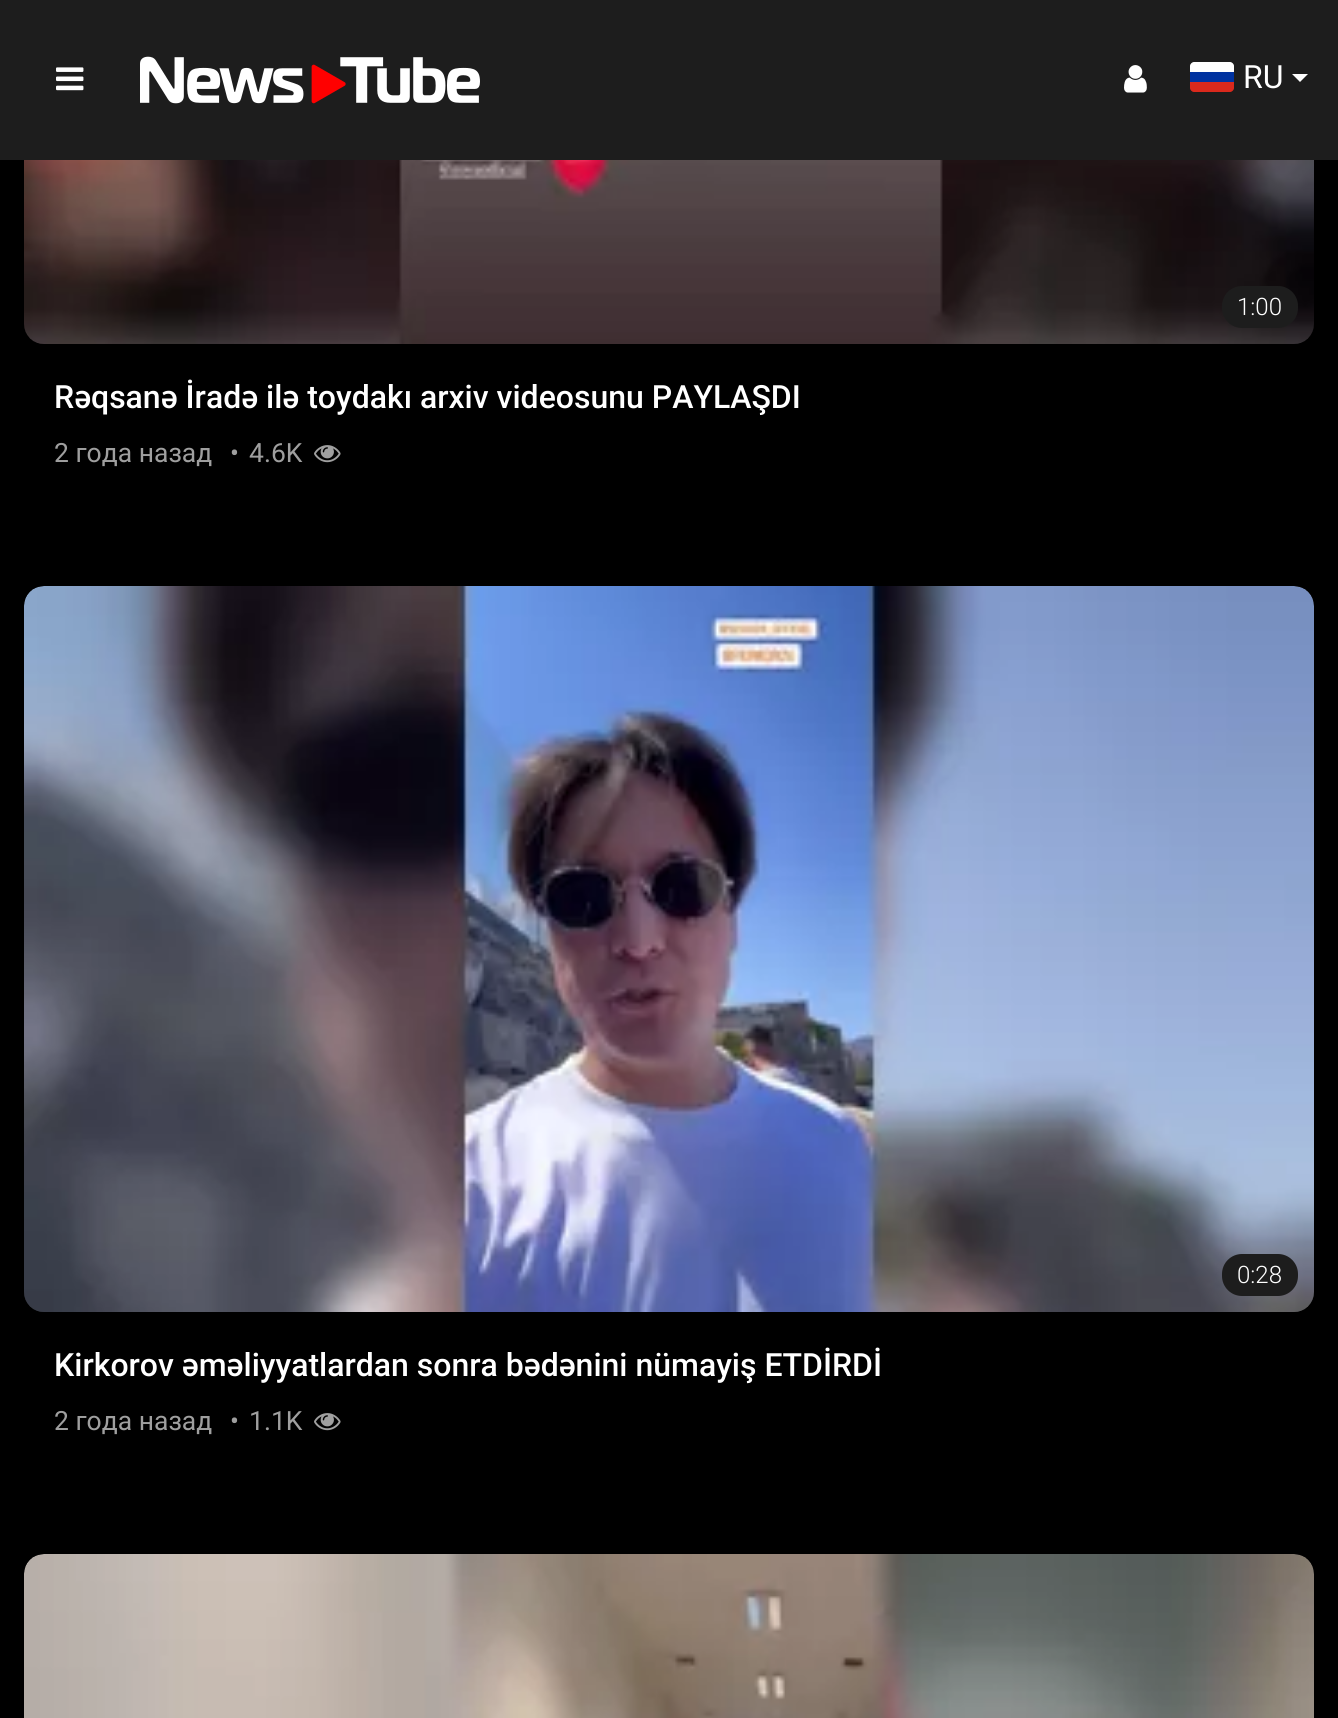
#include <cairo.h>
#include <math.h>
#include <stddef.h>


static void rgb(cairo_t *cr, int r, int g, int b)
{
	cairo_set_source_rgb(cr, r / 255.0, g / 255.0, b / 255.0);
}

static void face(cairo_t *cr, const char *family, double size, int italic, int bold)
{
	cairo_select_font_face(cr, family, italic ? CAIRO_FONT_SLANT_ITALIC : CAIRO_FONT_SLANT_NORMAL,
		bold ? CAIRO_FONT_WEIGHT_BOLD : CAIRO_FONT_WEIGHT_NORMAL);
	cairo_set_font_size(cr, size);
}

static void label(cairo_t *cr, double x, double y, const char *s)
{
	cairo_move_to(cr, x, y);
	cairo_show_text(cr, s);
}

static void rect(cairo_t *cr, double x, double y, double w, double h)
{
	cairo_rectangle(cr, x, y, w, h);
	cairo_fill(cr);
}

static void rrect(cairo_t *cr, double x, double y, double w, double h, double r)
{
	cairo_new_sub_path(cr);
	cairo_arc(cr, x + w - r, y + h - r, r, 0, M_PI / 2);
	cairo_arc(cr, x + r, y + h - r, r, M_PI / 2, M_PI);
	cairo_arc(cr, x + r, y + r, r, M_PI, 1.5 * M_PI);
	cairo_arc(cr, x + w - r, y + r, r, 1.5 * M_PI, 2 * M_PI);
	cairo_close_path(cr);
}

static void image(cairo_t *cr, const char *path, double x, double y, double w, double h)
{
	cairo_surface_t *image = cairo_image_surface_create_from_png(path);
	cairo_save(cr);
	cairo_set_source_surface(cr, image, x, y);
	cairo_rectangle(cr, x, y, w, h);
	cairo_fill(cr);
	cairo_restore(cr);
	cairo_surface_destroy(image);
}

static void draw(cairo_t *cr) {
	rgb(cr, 0, 0, 0);
	cairo_paint(cr);
	rgb(cr, 29, 29, 29);
	rect(cr, 0, 0, 1338, 160);
	image(cr, "image0.png", 56, 67, 28, 24);
	image(cr, "image1.png", 140, 56, 340, 48);
	image(cr, "image2.png", 1124, 65, 23, 28);
	rgb(cr, 218, 41, 28);
	cairo_new_path(cr);
	cairo_move_to(cr, 1190, 82);
	cairo_line_to(cr, 1234, 82);
	cairo_line_to(cr, 1234, 88);
	cairo_curve_to(cr, 1234, 90, 1232, 92, 1230, 92);
	cairo_line_to(cr, 1194, 92);
	cairo_curve_to(cr, 1192, 92, 1190, 90, 1190, 88);
	cairo_close_path(cr);
	cairo_fill(cr);
	rgb(cr, 0, 50, 160);
	rect(cr, 1190, 72, 44, 10);
	rgb(cr, 255, 255, 255);
	cairo_new_path(cr);
	cairo_move_to(cr, 1194, 62);
	cairo_line_to(cr, 1230, 62);
	cairo_curve_to(cr, 1232, 62, 1234, 64, 1234, 66);
	cairo_line_to(cr, 1234, 72);
	cairo_line_to(cr, 1190, 72);
	cairo_line_to(cr, 1190, 66);
	cairo_curve_to(cr, 1190, 64, 1192, 62, 1194, 62);
	cairo_close_path(cr);
	cairo_fill(cr);
	face(cr, "Roboto", 32, 0, 0);
	label(cr, 1243, 88, "RU");
	cairo_new_path(cr);
	cairo_move_to(cr, 1292, 74);
	cairo_line_to(cr, 1308, 74);
	cairo_line_to(cr, 1300, 82);
	cairo_close_path(cr);
	cairo_fill(cr);
	image(cr, "image3.png", 24, 160, 1290, 184);
	rgb(cr, 29, 29, 29);
	rrect(cr, 1222, 286, 76, 42, 20);
	cairo_fill(cr);
	face(cr, "Roboto Light", 24, 0, 0);
	rgb(cr, 255, 255, 255);
	label(cr, 1237, 315, "1:00");
	face(cr, "Roboto Medium", 32, 0, 0);
	label(cr, 54, 408, "Rəqsanə İradə ilə toydakı arxiv videosunu PAYLAŞDI");
	face(cr, "Roboto", 26.5, 0, 0);
	rgb(cr, 159, 159, 159);
	label(cr, 54, 462, "2 года назад");
	label(cr, 230, 462, "•");
	label(cr, 249, 462, "4.6K");
	image(cr, "image4.png", 314, 445, 27, 18);
	rgb(cr, 29, 29, 29);
	rrect(cr, 24, 586, 1290, 726, 20);
	cairo_fill(cr);
	image(cr, "image5.png", 24, 586, 1290, 726);
	rrect(cr, 1222, 1254, 76, 42, 20);
	cairo_fill(cr);
	face(cr, "Roboto Light", 24, 0, 0);
	rgb(cr, 255, 255, 255);
	label(cr, 1237, 1283, "0:28");
	face(cr, "Roboto Medium", 32, 0, 0);
	label(cr, 54, 1376, "Kirkorov əməliyyatlardan sonra bədənini nümayiş ETDİRDİ");
	face(cr, "Roboto", 26.5, 0, 0);
	rgb(cr, 159, 159, 159);
	label(cr, 54, 1430, "2 года назад");
	label(cr, 230, 1430, "•");
	label(cr, 249, 1430, "1.1K");
	image(cr, "image4.png", 314, 1413, 27, 18);
	rgb(cr, 29, 29, 29);
	rrect(cr, 24, 1554, 1290, 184, 20);
	cairo_fill(cr);
	image(cr, "image6.png", 24, 1554, 1290, 164);
}

int main(void) {
	cairo_surface_t *surface = cairo_image_surface_create(CAIRO_FORMAT_RGB24, 1338, 1718);
	cairo_t *cr = cairo_create(surface);
	cairo_font_options_t *options = cairo_font_options_create();
	cairo_font_options_set_hint_metrics(options, CAIRO_HINT_METRICS_OFF);
	cairo_font_options_set_hint_style(options, CAIRO_HINT_STYLE_NONE);
	cairo_set_font_options(cr, options);
	cairo_set_miter_limit(cr, 4);
	draw(cr);
	cairo_surface_write_to_png(surface, "render.png");
	cairo_font_options_destroy(options);
	cairo_destroy(cr);
	cairo_surface_destroy(surface);
	return 0;
}
